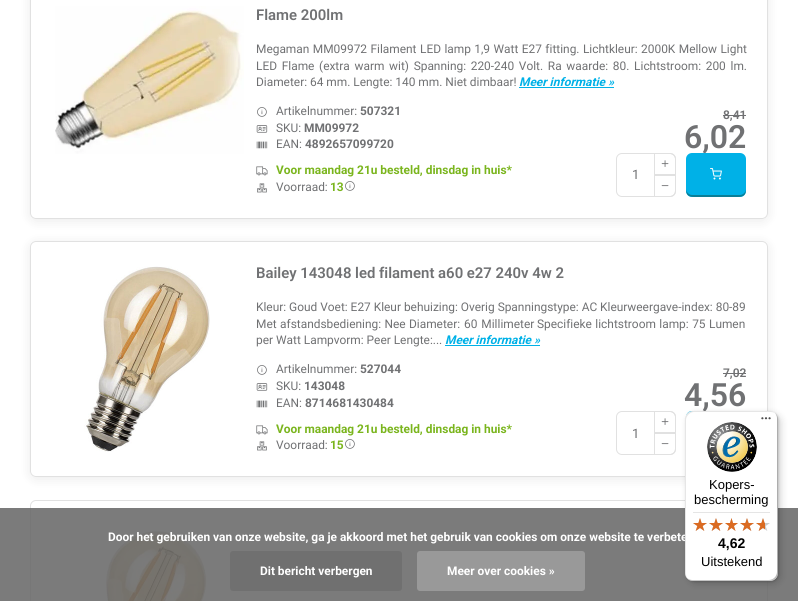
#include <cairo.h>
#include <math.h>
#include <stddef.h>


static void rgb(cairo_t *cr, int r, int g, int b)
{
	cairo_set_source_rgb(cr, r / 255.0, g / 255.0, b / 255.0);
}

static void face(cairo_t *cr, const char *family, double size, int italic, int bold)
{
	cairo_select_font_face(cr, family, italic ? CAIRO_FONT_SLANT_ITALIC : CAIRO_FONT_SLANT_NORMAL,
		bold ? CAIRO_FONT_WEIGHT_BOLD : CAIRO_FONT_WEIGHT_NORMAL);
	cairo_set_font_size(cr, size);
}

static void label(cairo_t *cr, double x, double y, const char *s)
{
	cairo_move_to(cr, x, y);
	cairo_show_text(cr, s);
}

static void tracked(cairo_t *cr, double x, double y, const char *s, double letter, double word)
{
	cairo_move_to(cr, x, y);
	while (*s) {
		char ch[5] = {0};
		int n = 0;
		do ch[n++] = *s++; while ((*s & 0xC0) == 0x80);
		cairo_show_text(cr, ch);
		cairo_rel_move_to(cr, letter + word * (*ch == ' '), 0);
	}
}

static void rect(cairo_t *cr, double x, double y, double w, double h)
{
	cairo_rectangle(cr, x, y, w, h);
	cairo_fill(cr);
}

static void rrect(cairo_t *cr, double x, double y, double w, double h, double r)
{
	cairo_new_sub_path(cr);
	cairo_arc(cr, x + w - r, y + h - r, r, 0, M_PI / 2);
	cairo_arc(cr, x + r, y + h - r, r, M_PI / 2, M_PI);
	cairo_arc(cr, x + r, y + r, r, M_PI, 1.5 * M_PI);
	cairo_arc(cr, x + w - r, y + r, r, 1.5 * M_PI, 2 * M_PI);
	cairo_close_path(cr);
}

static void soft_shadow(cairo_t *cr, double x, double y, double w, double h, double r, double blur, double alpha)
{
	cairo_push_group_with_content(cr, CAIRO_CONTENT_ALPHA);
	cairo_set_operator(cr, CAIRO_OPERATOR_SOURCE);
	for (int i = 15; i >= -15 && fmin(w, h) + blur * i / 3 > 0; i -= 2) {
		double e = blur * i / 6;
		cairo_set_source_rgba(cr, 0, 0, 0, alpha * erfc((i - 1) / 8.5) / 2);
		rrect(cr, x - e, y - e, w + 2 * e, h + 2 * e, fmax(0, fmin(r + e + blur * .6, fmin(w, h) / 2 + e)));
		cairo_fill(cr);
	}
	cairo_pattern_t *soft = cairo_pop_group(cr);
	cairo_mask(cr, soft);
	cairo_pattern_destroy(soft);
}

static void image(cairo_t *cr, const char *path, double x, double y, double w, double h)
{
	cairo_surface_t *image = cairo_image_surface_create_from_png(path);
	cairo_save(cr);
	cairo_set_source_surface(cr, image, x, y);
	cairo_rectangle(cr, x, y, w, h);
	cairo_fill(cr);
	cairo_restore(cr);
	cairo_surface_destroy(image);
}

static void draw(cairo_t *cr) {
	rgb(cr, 255, 255, 255);
	cairo_paint(cr);
	cairo_save(cr);
	cairo_set_fill_rule(cr, CAIRO_FILL_RULE_EVEN_ODD);
	cairo_new_path(cr);
	cairo_move_to(cr, 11, 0);
	cairo_line_to(cr, 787, 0);
	cairo_line_to(cr, 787, 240);
	cairo_line_to(cr, 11, 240);
	cairo_close_path(cr);
	cairo_move_to(cr, 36, -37);
	cairo_line_to(cr, 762, -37);
	cairo_curve_to(cr, 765.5, -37, 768, -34.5, 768, -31);
	cairo_line_to(cr, 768, 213);
	cairo_curve_to(cr, 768, 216.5, 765.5, 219, 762, 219);
	cairo_line_to(cr, 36, 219);
	cairo_curve_to(cr, 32.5, 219, 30, 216.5, 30, 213);
	cairo_line_to(cr, 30, -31);
	cairo_curve_to(cr, 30, -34.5, 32.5, -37, 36, -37);
	cairo_close_path(cr);
	cairo_clip(cr);
	rgb(cr, 0, 0, 0);
	soft_shadow(cr, 30, -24, 738, 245, 6, 6, 0.08);
	cairo_restore(cr);
	rrect(cr, 30.5, -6.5, 737, 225, 5.5);
	rgb(cr, 225, 225, 225);
	cairo_set_line_width(cr, 1);
	cairo_stroke(cr);
	image(cr, "image0.png", 55, 6, 189, 148);
	face(cr, "Roboto SemiBold", 14.9, 0, 0);
	rgb(cr, 112, 113, 115);
	label(cr, 256, 20, "Flame 200lm");
	face(cr, "Roboto", 11.9, 0, 0);
	tracked(cr, 256, 53, "Megaman MM09972 Filament LED lamp 1,9 Watt E27 fitting. Lichtkleur: 2000K Mellow Light", 0, 0.5);
	tracked(cr, 256, 70, "LED Flame (extra warm wit) Spanning: 220-240 Volt. Ra waarde: 80. Lichtstroom: 200 lm.", 0, 1.75);
	label(cr, 256, 86, "Diameter: 64 mm. Lengte: 140 mm. Niet dimbaar!");
	face(cr, "Roboto", 11.9, 1, 1);
	rgb(cr, 0, 177, 231);
	label(cr, 519, 86, "Meer informatie »");
	rect(cr, 519, 87, 95, 1);
	face(cr, "Roboto SemiBold", 12, 0, 0);
	rgb(cr, 112, 113, 115);
	label(cr, 723, 119, "8,41");
	rect(cr, 723, 115, 23, 1);
	face(cr, "Roboto SemiBold", 32, 0, 0);
	label(cr, 684, 148, "6,02");
	image(cr, "image1.png", 257, 107, 10, 10);
	face(cr, "Roboto", 11.9, 0, 0);
	label(cr, 276, 115, "Artikelnummer:");
	face(cr, "Roboto", 11.9, 0, 1);
	label(cr, 360, 115, "507321");
	image(cr, "image2.png", 256, 125, 12, 8);
	face(cr, "Roboto", 11.9, 0, 0);
	label(cr, 276, 132, "SKU:");
	face(cr, "Roboto", 11.9, 0, 1);
	label(cr, 304, 132, "MM09972");
	image(cr, "image3.png", 256, 141, 12, 8);
	face(cr, "Roboto", 11.9, 0, 0);
	label(cr, 276, 148, "EAN:");
	face(cr, "Roboto", 11.9, 0, 1);
	label(cr, 305, 148, "4892657099720");
	image(cr, "image4.png", 256, 166, 12, 10);
	rgb(cr, 122, 181, 29);
	label(cr, 276, 174, "Voor maandag 21u besteld, dinsdag in huis*");
	image(cr, "image5.png", 257, 183, 10, 10);
	face(cr, "Roboto", 11.9, 0, 0);
	rgb(cr, 112, 113, 115);
	label(cr, 276, 191, "Voorraad:");
	face(cr, "Roboto", 11.9, 0, 1);
	rgb(cr, 122, 181, 29);
	label(cr, 330, 191, "13");
	image(cr, "image1.png", 345, 181, 10, 10);
	rrect(cr, 616.5, 153.5, 59, 43, 5.5);
	rgb(cr, 225, 225, 225);
	cairo_stroke(cr);
	face(cr, "Roboto", 13, 0, 0);
	rgb(cr, 112, 113, 115);
	label(cr, 632, 179, "1");
	cairo_new_path(cr);
	cairo_move_to(cr, 654.5, 153.5);
	cairo_line_to(cr, 670, 153.5);
	cairo_curve_to(cr, 673, 153.5, 675.5, 156, 675.5, 159);
	cairo_line_to(cr, 675.5, 174.5);
	cairo_line_to(cr, 654.5, 174.5);
	cairo_close_path(cr);
	rgb(cr, 225, 225, 225);
	cairo_stroke(cr);
	image(cr, "image6.png", 661, 160, 8, 7);
	cairo_new_path(cr);
	cairo_move_to(cr, 654.5, 175.5);
	cairo_line_to(cr, 675.5, 175.5);
	cairo_line_to(cr, 675.5, 191);
	cairo_curve_to(cr, 675.5, 194, 673, 196.5, 670, 196.5);
	cairo_line_to(cr, 654.5, 196.5);
	cairo_close_path(cr);
	cairo_stroke(cr);
	image(cr, "image7.png", 661, 185, 8, 2);
	rgb(cr, 0, 177, 231);
	rrect(cr, 686, 153, 60, 44, 6);
	cairo_fill(cr);
	rgb(cr, 11, 126, 150);
	cairo_new_path(cr);
	cairo_move_to(cr, 686, 189);
	cairo_curve_to(cr, 686, 198, 692, 197, 700, 197);
	cairo_line_to(cr, 732, 197);
	cairo_curve_to(cr, 740, 197, 746, 198, 746, 189);
	cairo_curve_to(cr, 746, 192, 743, 195, 740, 195);
	cairo_line_to(cr, 692, 195);
	cairo_curve_to(cr, 689, 195, 686, 192, 686, 189);
	cairo_close_path(cr);
	cairo_fill(cr);
	image(cr, "image8.png", 710, 168, 12, 12);
	cairo_save(cr);
	cairo_set_fill_rule(cr, CAIRO_FILL_RULE_EVEN_ODD);
	cairo_new_path(cr);
	cairo_move_to(cr, 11, 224);
	cairo_line_to(cr, 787, 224);
	cairo_line_to(cr, 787, 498);
	cairo_line_to(cr, 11, 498);
	cairo_close_path(cr);
	cairo_move_to(cr, 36, 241);
	cairo_line_to(cr, 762, 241);
	cairo_curve_to(cr, 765.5, 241, 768, 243.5, 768, 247);
	cairo_line_to(cr, 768, 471);
	cairo_curve_to(cr, 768, 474.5, 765.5, 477, 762, 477);
	cairo_line_to(cr, 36, 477);
	cairo_curve_to(cr, 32.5, 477, 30, 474.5, 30, 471);
	cairo_line_to(cr, 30, 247);
	cairo_curve_to(cr, 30, 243.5, 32.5, 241, 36, 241);
	cairo_close_path(cr);
	cairo_clip(cr);
	rgb(cr, 0, 0, 0);
	soft_shadow(cr, 30, 243, 738, 236, 6, 6, 0.08);
	cairo_restore(cr);
	rrect(cr, 30.5, 241.5, 737, 235, 5.5);
	rgb(cr, 225, 225, 225);
	cairo_stroke(cr);
	image(cr, "image9.png", 84, 266, 126, 186);
	face(cr, "Roboto SemiBold", 14.9, 0, 0);
	rgb(cr, 112, 113, 115);
	label(cr, 256, 278, "Bailey 143048 led filament a60 e27 240v 4w 2");
	face(cr, "Roboto", 11.9, 0, 0);
	label(cr, 256, 311, "Kleur: Goud Voet: E27 Kleur behuizing: Overig Spanningstype: AC Kleurweergave-index: 80-89");
	tracked(cr, 256, 328, "Met afstandsbediening: Nee", 0, 0.5);
	tracked(cr, 409, 328, "Diameter: 60 Millimeter", 0, 1);
	tracked(cr, 537, 328, "Specifieke lichtstroom lamp: 75 Lumen", 0, 0.5);
	label(cr, 256, 344, "per Watt Lampvorm: Peer Lengte:...");
	face(cr, "Roboto", 11.9, 1, 1);
	rgb(cr, 0, 177, 231);
	label(cr, 445, 344, "Meer informatie »");
	rect(cr, 445, 345, 95, 1);
	face(cr, "Roboto SemiBold", 12, 0, 0);
	rgb(cr, 112, 113, 115);
	label(cr, 723, 377, "7,02");
	rect(cr, 723, 373, 23, 1);
	face(cr, "Roboto SemiBold", 32, 0, 0);
	label(cr, 684, 406, "4,56");
	image(cr, "image1.png", 257, 365, 10, 10);
	face(cr, "Roboto", 11.9, 0, 0);
	label(cr, 276, 373, "Artikelnummer:");
	face(cr, "Roboto", 11.9, 0, 1);
	label(cr, 360, 373, "527044");
	image(cr, "image2.png", 256, 383, 12, 8);
	face(cr, "Roboto", 11.9, 0, 0);
	label(cr, 276, 390, "SKU:");
	face(cr, "Roboto", 11.9, 0, 1);
	label(cr, 304, 390, "143048");
	image(cr, "image3.png", 256, 400, 12, 8);
	face(cr, "Roboto", 11.9, 0, 0);
	label(cr, 276, 407, "EAN:");
	face(cr, "Roboto", 11.9, 0, 1);
	label(cr, 305, 407, "8714681430484");
	image(cr, "image4.png", 256, 425, 12, 10);
	rgb(cr, 122, 181, 29);
	label(cr, 276, 433, "Voor maandag 21u besteld, dinsdag in huis*");
	image(cr, "image5.png", 257, 441, 10, 10);
	face(cr, "Roboto", 11.9, 0, 0);
	rgb(cr, 112, 113, 115);
	label(cr, 276, 449, "Voorraad:");
	face(cr, "Roboto", 11.9, 0, 1);
	rgb(cr, 122, 181, 29);
	label(cr, 330, 449, "15");
	image(cr, "image1.png", 345, 439, 10, 10);
	rrect(cr, 616.5, 411.5, 59, 43, 5.5);
	rgb(cr, 225, 225, 225);
	cairo_stroke(cr);
	face(cr, "Roboto", 13, 0, 0);
	rgb(cr, 112, 113, 115);
	label(cr, 632, 438, "1");
	cairo_new_path(cr);
	cairo_move_to(cr, 654.5, 411.5);
	cairo_line_to(cr, 670, 411.5);
	cairo_curve_to(cr, 673, 411.5, 675.5, 414, 675.5, 417);
	cairo_line_to(cr, 675.5, 432.5);
	cairo_line_to(cr, 654.5, 432.5);
	cairo_close_path(cr);
	rgb(cr, 225, 225, 225);
	cairo_stroke(cr);
	image(cr, "image6.png", 661, 418, 8, 7);
	cairo_new_path(cr);
	cairo_move_to(cr, 654.5, 433.5);
	cairo_line_to(cr, 675.5, 433.5);
	cairo_line_to(cr, 675.5, 449);
	cairo_curve_to(cr, 675.5, 452, 673, 454.5, 670, 454.5);
	cairo_line_to(cr, 654.5, 454.5);
	cairo_close_path(cr);
	cairo_stroke(cr);
	image(cr, "image7.png", 661, 443, 8, 2);
	rgb(cr, 0, 177, 231);
	rrect(cr, 686, 411, 60, 44, 6);
	cairo_fill(cr);
	rrect(cr, 30.5, 500.5, 737, 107, 5.5);
	rgb(cr, 225, 225, 225);
	cairo_stroke(cr);
	image(cr, "image10.png", 106, 531, 101, 70);
	cairo_set_source_rgba(cr, 0.392, 0.392, 0.392, 0.85);
	rect(cr, 0, 508, 798, 93);
	face(cr, "Roboto", 11.9, 0, 1);
	rgb(cr, 255, 255, 255);
	label(cr, 108, 541, "Door het gebruiken van onze website, ga je akkoord met het gebruik van cookies om onze website te verbete");
	rgb(cr, 112, 112, 112);
	rrect(cr, 230, 551, 172, 40, 3);
	cairo_fill(cr);
	rgb(cr, 255, 255, 255);
	label(cr, 260, 575, "Dit bericht verbergen");
	rgb(cr, 153, 153, 153);
	rrect(cr, 417, 551, 168, 40, 3);
	cairo_fill(cr);
	rgb(cr, 255, 255, 255);
	label(cr, 447, 575, "Meer over cookies »");
	rgb(cr, 0, 0, 0);
	soft_shadow(cr, 688, 414, 93, 170, 8, 4, 0.15);
	soft_shadow(cr, 686, 412, 93, 170, 8, 1, 0.15);
	rgb(cr, 255, 255, 255);
	rrect(cr, 685, 411, 93, 170, 8);
	cairo_fill(cr);
	cairo_set_source_rgba(cr, 0, 0, 0, 0.1);
	cairo_new_path(cr);
	cairo_move_to(cr, 694, 412);
	cairo_line_to(cr, 771, 412);
	cairo_curve_to(cr, 773, 412, 775, 413, 777, 415);
	cairo_curve_to(cr, 775, 413, 773, 411, 770, 411);
	cairo_line_to(cr, 693, 411);
	cairo_curve_to(cr, 689, 411, 685, 415, 685, 419);
	cairo_line_to(cr, 685, 573);
	cairo_curve_to(cr, 685, 576, 687, 578, 689, 580);
	cairo_curve_to(cr, 687, 578, 686, 576, 686, 574);
	cairo_line_to(cr, 686, 420);
	cairo_curve_to(cr, 686, 416, 690, 412, 694, 412);
	cairo_close_path(cr);
	cairo_fill(cr);
	cairo_set_source_rgba(cr, 0, 0, 0, 0.2);
	cairo_new_path(cr);
	cairo_move_to(cr, 686, 577);
	cairo_curve_to(cr, 688, 579, 690, 581, 693, 581);
	cairo_line_to(cr, 770, 581);
	cairo_curve_to(cr, 774, 581, 778, 577, 778, 573);
	cairo_line_to(cr, 778, 419);
	cairo_curve_to(cr, 778, 416, 776, 414, 774, 412);
	cairo_curve_to(cr, 776, 414, 777, 416, 777, 418);
	cairo_line_to(cr, 777, 572);
	cairo_curve_to(cr, 777, 576, 773, 580, 769, 580);
	cairo_line_to(cr, 692, 580);
	cairo_curve_to(cr, 690, 580, 688, 579, 686, 577);
	cairo_close_path(cr);
	cairo_fill(cr);
	cairo_set_source_rgba(cr, 0.196, 0.196, 0.196, 0.2);
	cairo_new_path(cr);
	cairo_move_to(cr, 687, 578);
	cairo_curve_to(cr, 688, 580, 691, 581, 693, 581);
	cairo_line_to(cr, 770, 581);
	cairo_curve_to(cr, 774, 581, 778, 577, 778, 573);
	cairo_line_to(cr, 778, 419);
	cairo_curve_to(cr, 778, 417, 777, 414, 775, 413);
	cairo_curve_to(cr, 776, 414, 777, 416, 777, 418);
	cairo_line_to(cr, 777, 572);
	cairo_curve_to(cr, 777, 577, 774, 580, 769, 580);
	cairo_line_to(cr, 692, 580);
	cairo_curve_to(cr, 690, 580, 688, 579, 687, 578);
	cairo_close_path(cr);
	cairo_fill(cr);
	image(cr, "image11.png", 761, 417, 10, 3);
	cairo_set_source_rgba(cr, 1, 1, 1, 0.3);
	cairo_new_path(cr);
	cairo_move_to(cr, 687, 578);
	cairo_curve_to(cr, 688, 580, 691, 581, 693, 581);
	cairo_line_to(cr, 770, 581);
	cairo_curve_to(cr, 774, 581, 778, 577, 778, 573);
	cairo_line_to(cr, 778, 572);
	cairo_curve_to(cr, 778, 577, 774, 580, 770, 580);
	cairo_line_to(cr, 692, 580);
	cairo_curve_to(cr, 690, 580, 688, 579, 687, 578);
	cairo_close_path(cr);
	cairo_fill(cr);
	image(cr, "image12.png", 707, 422, 50, 50);
	face(cr, "Liberation Sans", 13, 0, 0);
	rgb(cr, 0, 0, 0);
	label(cr, 709, 489, "Kopers-");
	label(cr, 694, 504, "bescherming");
	rgb(cr, 229, 229, 229);
	rect(cr, 693, 512, 77, 1);
	image(cr, "image13.png", 693, 518, 14, 13);
	image(cr, "image13.png", 709, 518, 14, 13);
	image(cr, "image14.png", 725, 518, 13, 13);
	image(cr, "image13.png", 740, 518, 14, 13);
	image(cr, "image13.png", 756, 518, 14, 13);
	image(cr, "image15.png", 693, 518, 14, 13);
	image(cr, "image15.png", 709, 518, 14, 13);
	image(cr, "image16.png", 725, 518, 13, 13);
	image(cr, "image15.png", 740, 518, 14, 13);
	image(cr, "image17.png", 756, 518, 9, 13);
	face(cr, "Liberation Sans", 14, 0, 1);
	rgb(cr, 0, 0, 0);
	label(cr, 718, 548, "4,62");
	face(cr, "Liberation Sans", 13, 0, 0);
	label(cr, 701, 566, "Uitstekend");
}

int main(void) {
	cairo_surface_t *surface = cairo_image_surface_create(CAIRO_FORMAT_RGB24, 798, 601);
	cairo_t *cr = cairo_create(surface);
	cairo_font_options_t *options = cairo_font_options_create();
	cairo_font_options_set_hint_metrics(options, CAIRO_HINT_METRICS_OFF);
	cairo_font_options_set_hint_style(options, CAIRO_HINT_STYLE_NONE);
	cairo_set_font_options(cr, options);
	cairo_set_miter_limit(cr, 4);
	draw(cr);
	cairo_surface_write_to_png(surface, "render.png");
	cairo_font_options_destroy(options);
	cairo_destroy(cr);
	cairo_surface_destroy(surface);
	return 0;
}
